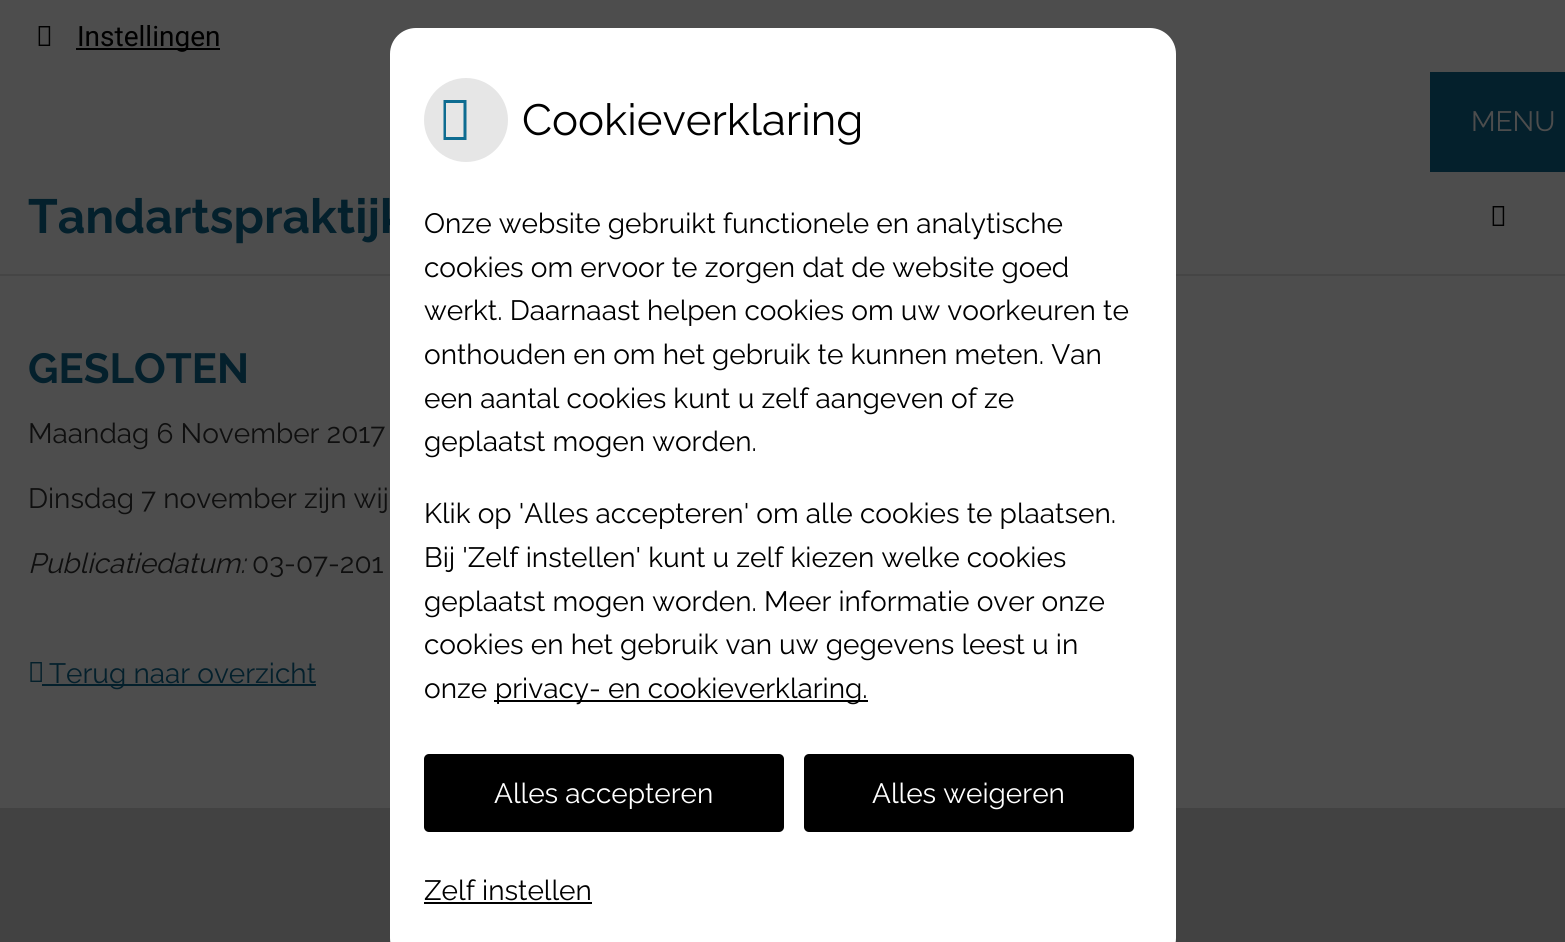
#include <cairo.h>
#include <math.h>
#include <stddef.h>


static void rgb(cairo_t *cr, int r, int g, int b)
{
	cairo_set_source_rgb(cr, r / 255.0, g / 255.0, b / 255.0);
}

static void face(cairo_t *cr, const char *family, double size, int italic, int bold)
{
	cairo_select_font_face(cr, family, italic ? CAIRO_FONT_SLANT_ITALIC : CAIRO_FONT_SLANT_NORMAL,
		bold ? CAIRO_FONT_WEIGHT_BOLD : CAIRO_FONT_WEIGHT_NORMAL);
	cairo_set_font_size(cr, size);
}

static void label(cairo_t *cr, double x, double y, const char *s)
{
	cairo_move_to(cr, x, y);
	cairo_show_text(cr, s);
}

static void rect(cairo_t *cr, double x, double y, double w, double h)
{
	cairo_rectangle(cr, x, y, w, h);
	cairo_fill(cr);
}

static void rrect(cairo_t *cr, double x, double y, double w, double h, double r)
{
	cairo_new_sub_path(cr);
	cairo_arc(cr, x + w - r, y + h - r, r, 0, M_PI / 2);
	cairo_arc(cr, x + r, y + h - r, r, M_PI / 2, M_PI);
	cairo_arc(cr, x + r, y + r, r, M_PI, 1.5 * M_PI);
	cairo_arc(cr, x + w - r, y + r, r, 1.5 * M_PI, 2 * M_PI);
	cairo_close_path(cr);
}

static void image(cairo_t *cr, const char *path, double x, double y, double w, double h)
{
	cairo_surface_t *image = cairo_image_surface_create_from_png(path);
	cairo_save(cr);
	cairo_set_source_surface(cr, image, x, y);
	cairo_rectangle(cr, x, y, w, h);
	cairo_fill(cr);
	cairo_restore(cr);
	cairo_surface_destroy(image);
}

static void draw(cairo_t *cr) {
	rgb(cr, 77, 77, 77);
	cairo_paint(cr);
	image(cr, "image0.png", 38, 26, 13, 20);
	rgb(cr, 0, 0, 0);
	rect(cr, 76, 48, 144, 2);
	face(cr, "Roboto", 28, 0, 0);
	label(cr, 77, 46, "Instellingen");
	rgb(cr, 69, 69, 69);
	rect(cr, 0, 274, 1565, 2);
	face(cr, "Raleway", 48, 0, 1);
	rgb(cr, 4, 32, 44);
	label(cr, 28, 233, "Tandartspraktijk");
	rgb(cr, 66, 66, 66);
	rect(cr, 0, 808, 1565, 134);
	rgb(cr, 255, 255, 255);
	rrect(cr, 390, 28, 786, 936, 26);
	cairo_fill(cr);
	rgb(cr, 230, 230, 230);
	cairo_arc(cr, 466, 120, 42, 0, 2 * M_PI);
	cairo_fill(cr);
	rgb(cr, 14, 108, 145);
	cairo_new_path(cr);
	cairo_move_to(cr, 443.5, 140);
	cairo_line_to(cr, 443.5, 100);
	cairo_line_to(cr, 466.5, 100);
	cairo_line_to(cr, 466.5, 140);
	cairo_close_path(cr);
	cairo_move_to(cr, 446, 137);
	cairo_line_to(cr, 463.5, 137);
	cairo_line_to(cr, 463.5, 103);
	cairo_line_to(cr, 446, 103);
	cairo_close_path(cr);
	cairo_fill(cr);
	face(cr, "Raleway", 43.75, 0, 0);
	rgb(cr, 0, 0, 0);
	label(cr, 522, 135, "Cookieverklaring");
	face(cr, "Raleway", 28, 0, 0);
	label(cr, 424, 233, "Onze website gebruikt functionele en analytische");
	label(cr, 424, 277, "cookies om ervoor te zorgen dat de website goed");
	label(cr, 424, 320, "werkt. Daarnaast helpen cookies om uw voorkeuren te");
	label(cr, 424, 364, "onthouden en om het gebruik te kunnen meten. Van");
	label(cr, 424, 408, "een aantal cookies kunt u zelf aangeven of ze");
	label(cr, 424, 451, "geplaatst mogen worden.");
	label(cr, 424, 523, "Klik op 'Alles accepteren' om alle cookies te plaatsen.");
	label(cr, 424, 567, "Bij 'Zelf instellen' kunt u zelf kiezen welke cookies");
	label(cr, 424, 611, "geplaatst mogen worden. Meer informatie over onze");
	label(cr, 424, 654, "cookies en het gebruik van uw gegevens leest u in");
	label(cr, 424, 698, "onze");
	rect(cr, 494, 700, 374, 2);
	label(cr, 495, 698, "privacy- en cookieverklaring.");
	rrect(cr, 424, 754, 360, 78, 5);
	cairo_fill(cr);
	rgb(cr, 255, 255, 255);
	label(cr, 494, 803, "Alles accepteren");
	rgb(cr, 0, 0, 0);
	rrect(cr, 804, 754, 330, 78, 5);
	cairo_fill(cr);
	rgb(cr, 255, 255, 255);
	label(cr, 872, 803, "Alles weigeren");
	rgb(cr, 0, 0, 0);
	label(cr, 424, 900, "Zelf instellen");
	rect(cr, 424, 902, 168, 2);
	rgb(cr, 4, 32, 44);
	rect(cr, 1430, 72, 135, 100);
	rgb(cr, 77, 77, 77);
	label(cr, 1471, 131, "MENU");
	image(cr, "image0.png", 1492, 206, 13, 20);
	face(cr, "Raleway", 42, 0, 1);
	rgb(cr, 4, 32, 44);
	label(cr, 28, 383, "GESLOTEN");
	face(cr, "Raleway", 28, 0, 0);
	rgb(cr, 15, 15, 15);
	label(cr, 28, 443, "Maandag 6 November 2017");
	label(cr, 28, 508, "Dinsdag 7 november zijn wij");
	face(cr, "Raleway", 28, 1, 0);
	label(cr, 28, 573, "Publicatiedatum:");
	face(cr, "Raleway", 28, 0, 0);
	label(cr, 252, 573, "03-07-201");
	image(cr, "image1.png", 30, 662, 12, 20);
	rgb(cr, 4, 32, 44);
	rect(cr, 42, 684, 274, 2);
	label(cr, 49, 683, "Terug naar overzicht");
}

int main(void) {
	cairo_surface_t *surface = cairo_image_surface_create(CAIRO_FORMAT_RGB24, 1565, 942);
	cairo_t *cr = cairo_create(surface);
	cairo_font_options_t *options = cairo_font_options_create();
	cairo_font_options_set_hint_metrics(options, CAIRO_HINT_METRICS_OFF);
	cairo_font_options_set_hint_style(options, CAIRO_HINT_STYLE_NONE);
	cairo_set_font_options(cr, options);
	cairo_set_miter_limit(cr, 4);
	draw(cr);
	cairo_surface_write_to_png(surface, "render.png");
	cairo_font_options_destroy(options);
	cairo_destroy(cr);
	cairo_surface_destroy(surface);
	return 0;
}
